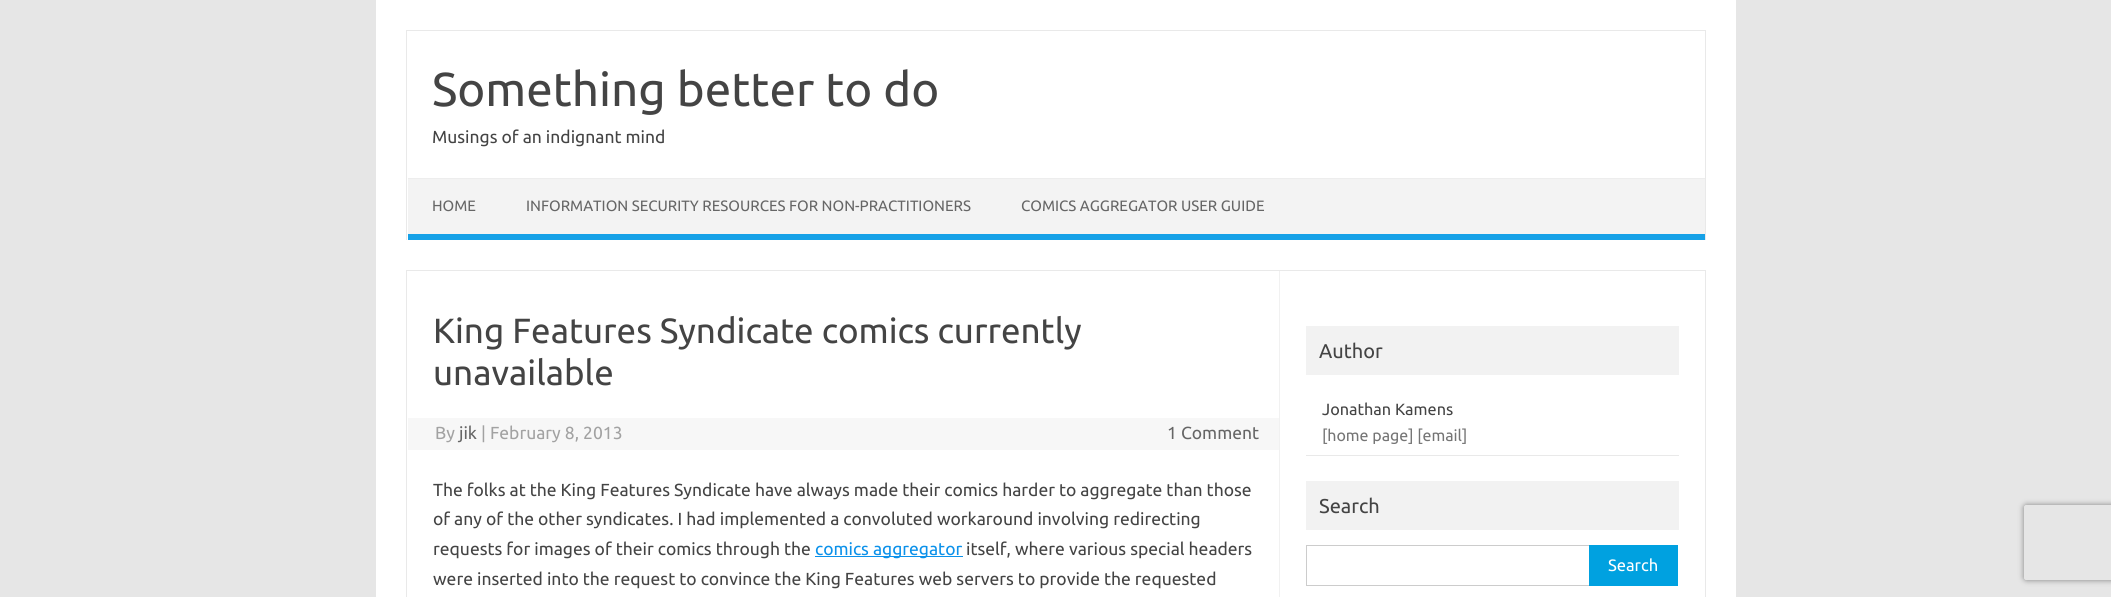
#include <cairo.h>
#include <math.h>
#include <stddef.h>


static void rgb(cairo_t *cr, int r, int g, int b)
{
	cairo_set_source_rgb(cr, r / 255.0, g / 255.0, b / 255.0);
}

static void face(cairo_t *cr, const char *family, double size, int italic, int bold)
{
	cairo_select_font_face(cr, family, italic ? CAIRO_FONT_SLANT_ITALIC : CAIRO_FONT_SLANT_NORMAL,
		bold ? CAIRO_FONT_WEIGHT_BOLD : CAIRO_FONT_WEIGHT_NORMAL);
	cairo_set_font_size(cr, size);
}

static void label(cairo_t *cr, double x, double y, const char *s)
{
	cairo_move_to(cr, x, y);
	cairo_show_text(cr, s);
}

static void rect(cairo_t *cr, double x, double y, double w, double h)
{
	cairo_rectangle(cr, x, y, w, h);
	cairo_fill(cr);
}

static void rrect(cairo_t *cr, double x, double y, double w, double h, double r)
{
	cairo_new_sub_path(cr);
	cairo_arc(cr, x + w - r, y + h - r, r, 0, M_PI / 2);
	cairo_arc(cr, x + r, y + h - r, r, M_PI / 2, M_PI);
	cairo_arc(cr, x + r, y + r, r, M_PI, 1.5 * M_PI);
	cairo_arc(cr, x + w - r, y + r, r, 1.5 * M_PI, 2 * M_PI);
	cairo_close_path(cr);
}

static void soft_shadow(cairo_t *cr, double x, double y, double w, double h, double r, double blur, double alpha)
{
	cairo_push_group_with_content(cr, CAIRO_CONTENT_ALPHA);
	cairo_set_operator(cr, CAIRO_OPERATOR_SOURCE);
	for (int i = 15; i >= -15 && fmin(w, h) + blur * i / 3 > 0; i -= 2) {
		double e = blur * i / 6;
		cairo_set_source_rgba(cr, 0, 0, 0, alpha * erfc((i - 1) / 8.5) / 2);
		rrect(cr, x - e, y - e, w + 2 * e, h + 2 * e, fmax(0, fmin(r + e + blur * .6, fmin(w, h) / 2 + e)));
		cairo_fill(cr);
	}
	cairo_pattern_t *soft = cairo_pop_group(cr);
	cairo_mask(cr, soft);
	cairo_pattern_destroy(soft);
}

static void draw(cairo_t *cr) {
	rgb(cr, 230, 230, 230);
	cairo_paint(cr);
	rgb(cr, 255, 255, 255);
	rect(cr, 376, 0, 1360, 597);
	rgb(cr, 233, 233, 233);
	rect(cr, 406, 30, 1300, 1);
	rect(cr, 1705, 30, 1, 210);
	rect(cr, 406, 30, 1, 210);
	face(cr, "Ubuntu", 47.5, 0, 0);
	rgb(cr, 68, 68, 68);
	label(cr, 432, 106, "Something better to do");
	face(cr, "Ubuntu", 17.5, 0, 0);
	label(cr, 432, 143, "Musings of an indignant mind");
	rgb(cr, 243, 243, 243);
	rect(cr, 408, 179, 1297, 55);
	rgb(cr, 237, 237, 237);
	rect(cr, 408, 178, 1297, 1);
	rgb(cr, 22, 161, 231);
	rect(cr, 408, 234, 1297, 6);
	face(cr, "Ubuntu", 15, 0, 0);
	rgb(cr, 102, 102, 102);
	label(cr, 432, 211, "HOME");
	label(cr, 526, 211, "INFORMATION SECURITY RESOURCES FOR NON-PRACTITIONERS");
	label(cr, 1021, 211, "COMICS AGGREGATOR USER GUIDE");
	cairo_rectangle(cr, 406.5, 270.5, 1299, 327);
	rgb(cr, 233, 233, 233);
	cairo_set_line_width(cr, 1);
	cairo_stroke(cr);
	rgb(cr, 241, 241, 241);
	rect(cr, 1279, 271, 1, 326);
	face(cr, "Ubuntu", 35, 0, 0);
	rgb(cr, 68, 68, 68);
	label(cr, 433, 343, "King Features Syndicate comics currently");
	label(cr, 433, 385, "unavailable");
	rgb(cr, 247, 247, 247);
	rect(cr, 408, 418, 871, 32);
	face(cr, "Ubuntu", 17.5, 0, 0);
	rgb(cr, 162, 162, 162);
	label(cr, 435, 439, "By");
	rgb(cr, 102, 102, 102);
	label(cr, 459, 439, "jik");
	rgb(cr, 162, 162, 162);
	label(cr, 481, 439, "| February 8, 2013");
	rgb(cr, 102, 102, 102);
	label(cr, 1167, 439, "1 Comment");
	rgb(cr, 68, 68, 68);
	label(cr, 433, 496, "The folks at the King Features Syndicate have always made their comics harder to aggregate than those");
	label(cr, 433, 525, "of any of the other syndicates. I had implemented a convoluted workaround involving redirecting");
	label(cr, 433, 555, "requests for images of their comics through the");
	rgb(cr, 11, 145, 234);
	rect(cr, 815, 556, 148, 1);
	label(cr, 815, 555, "comics aggregator");
	rgb(cr, 68, 68, 68);
	label(cr, 966, 555, "itself, where various special headers");
	label(cr, 433, 585, "were inserted into the request to convince the King Features web servers to provide the requested");
	rgb(cr, 242, 242, 242);
	rect(cr, 1306, 326, 373, 49);
	face(cr, "Ubuntu", 20, 0, 0);
	rgb(cr, 68, 68, 68);
	label(cr, 1319, 358, "Author");
	rgb(cr, 233, 233, 233);
	rect(cr, 1306, 455, 373, 1);
	face(cr, "Ubuntu", 16.25, 0, 0);
	rgb(cr, 68, 68, 68);
	label(cr, 1322, 415, "Jonathan Kamens");
	face(cr, "Ubuntu", 16, 0, 0);
	rgb(cr, 117, 117, 117);
	label(cr, 1322, 441, "[home page] [email]");
	rgb(cr, 242, 242, 242);
	rect(cr, 1306, 481, 373, 49);
	face(cr, "Ubuntu", 20, 0, 0);
	rgb(cr, 68, 68, 68);
	label(cr, 1319, 513, "Search");
	cairo_rectangle(cr, 1306.5, 545.5, 283, 40);
	rgb(cr, 204, 204, 204);
	cairo_stroke(cr);
	rgb(cr, 0, 161, 224);
	rect(cr, 1589, 545, 89, 41);
	face(cr, "Ubuntu", 16.5, 0, 0);
	rgb(cr, 255, 255, 255);
	label(cr, 1608, 571, "Search");
	cairo_save(cr);
	cairo_set_fill_rule(cr, CAIRO_FILL_RULE_EVEN_ODD);
	cairo_new_path(cr);
	cairo_move_to(cr, 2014, 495);
	cairo_line_to(cr, 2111, 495);
	cairo_line_to(cr, 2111, 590);
	cairo_line_to(cr, 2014, 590);
	cairo_close_path(cr);
	cairo_move_to(cr, 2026.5, 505);
	cairo_line_to(cr, 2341.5, 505);
	cairo_curve_to(cr, 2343, 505, 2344, 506, 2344, 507.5);
	cairo_line_to(cr, 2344, 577.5);
	cairo_curve_to(cr, 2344, 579, 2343, 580, 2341.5, 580);
	cairo_line_to(cr, 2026.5, 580);
	cairo_curve_to(cr, 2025, 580, 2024, 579, 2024, 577.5);
	cairo_line_to(cr, 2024, 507.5);
	cairo_curve_to(cr, 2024, 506, 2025, 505, 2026.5, 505);
	cairo_close_path(cr);
	cairo_clip(cr);
	rgb(cr, 128, 128, 128);
	soft_shadow(cr, 2024, 505, 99, 75, 2.5, 3, 1);
	cairo_restore(cr);
}

int main(void) {
	cairo_surface_t *surface = cairo_image_surface_create(CAIRO_FORMAT_RGB24, 2111, 597);
	cairo_t *cr = cairo_create(surface);
	cairo_font_options_t *options = cairo_font_options_create();
	cairo_font_options_set_hint_metrics(options, CAIRO_HINT_METRICS_OFF);
	cairo_font_options_set_hint_style(options, CAIRO_HINT_STYLE_NONE);
	cairo_set_font_options(cr, options);
	cairo_set_miter_limit(cr, 4);
	draw(cr);
	cairo_surface_write_to_png(surface, "render.png");
	cairo_font_options_destroy(options);
	cairo_destroy(cr);
	cairo_surface_destroy(surface);
	return 0;
}
